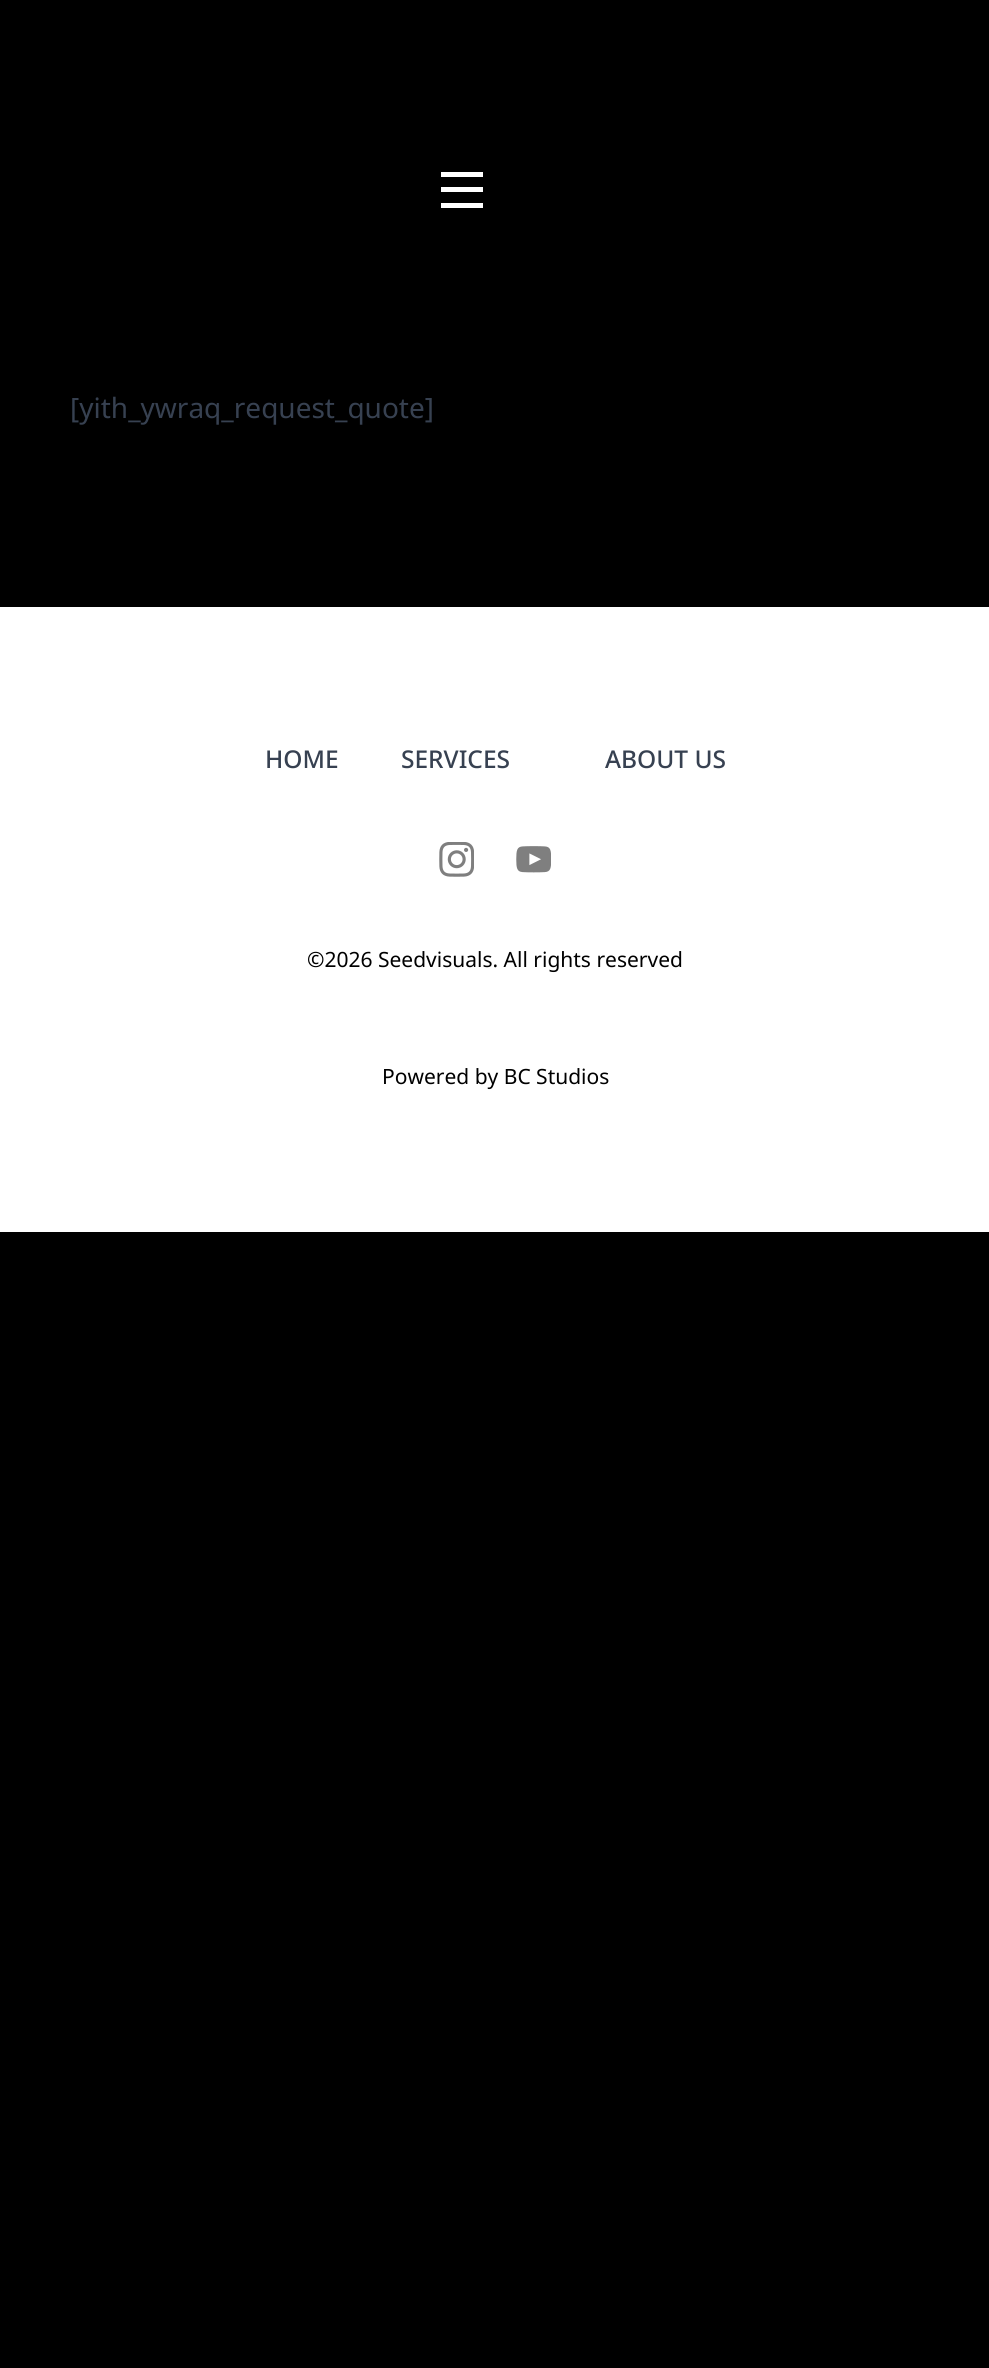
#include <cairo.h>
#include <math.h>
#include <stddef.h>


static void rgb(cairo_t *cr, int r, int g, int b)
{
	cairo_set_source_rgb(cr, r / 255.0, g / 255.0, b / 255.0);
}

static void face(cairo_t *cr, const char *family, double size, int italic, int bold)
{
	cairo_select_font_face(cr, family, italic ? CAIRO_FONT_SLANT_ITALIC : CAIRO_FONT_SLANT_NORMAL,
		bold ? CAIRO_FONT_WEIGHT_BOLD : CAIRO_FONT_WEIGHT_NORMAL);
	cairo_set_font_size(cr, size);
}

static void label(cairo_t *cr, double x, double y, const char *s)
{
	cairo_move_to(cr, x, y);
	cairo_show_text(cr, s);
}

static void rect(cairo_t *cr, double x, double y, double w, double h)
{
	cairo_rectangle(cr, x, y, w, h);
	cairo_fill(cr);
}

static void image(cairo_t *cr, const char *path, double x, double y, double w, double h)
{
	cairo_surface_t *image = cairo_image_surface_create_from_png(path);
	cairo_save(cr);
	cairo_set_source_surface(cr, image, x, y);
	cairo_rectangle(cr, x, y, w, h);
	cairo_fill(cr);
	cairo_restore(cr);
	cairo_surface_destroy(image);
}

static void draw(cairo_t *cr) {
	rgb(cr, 0, 0, 0);
	cairo_paint(cr);
	rgb(cr, 255, 255, 255);
	rect(cr, 441, 203, 42, 5);
	rect(cr, 441, 172, 42, 5);
	rect(cr, 441, 187, 42, 5);
	face(cr, "Noto Sans", 28, 0, 0);
	rgb(cr, 55, 65, 81);
	label(cr, 70, 418, "[yith_ywraq_request_quote]");
	rgb(cr, 255, 255, 255);
	rect(cr, 0, 607, 989, 625);
	face(cr, "Noto Sans Medium", 24.5, 0, 0);
	rgb(cr, 55, 65, 81);
	label(cr, 265, 768, "HOME");
	label(cr, 401, 768, "SERVICES");
	label(cr, 605, 768, "ABOUT US");
	image(cr, "image0.png", 439, 842, 35, 35);
	image(cr, "image1.png", 516, 846, 35, 27);
	face(cr, "Noto Sans", 21, 0, 0);
	rgb(cr, 0, 0, 0);
	label(cr, 307, 967, "©2026 Seedvisuals. All rights reserved");
	label(cr, 382, 1084, "Powered by BC Studios");
}

int main(void) {
	cairo_surface_t *surface = cairo_image_surface_create(CAIRO_FORMAT_RGB24, 989, 2368);
	cairo_t *cr = cairo_create(surface);
	cairo_font_options_t *options = cairo_font_options_create();
	cairo_font_options_set_hint_metrics(options, CAIRO_HINT_METRICS_OFF);
	cairo_font_options_set_hint_style(options, CAIRO_HINT_STYLE_NONE);
	cairo_set_font_options(cr, options);
	cairo_set_miter_limit(cr, 4);
	draw(cr);
	cairo_surface_write_to_png(surface, "render.png");
	cairo_font_options_destroy(options);
	cairo_destroy(cr);
	cairo_surface_destroy(surface);
	return 0;
}
